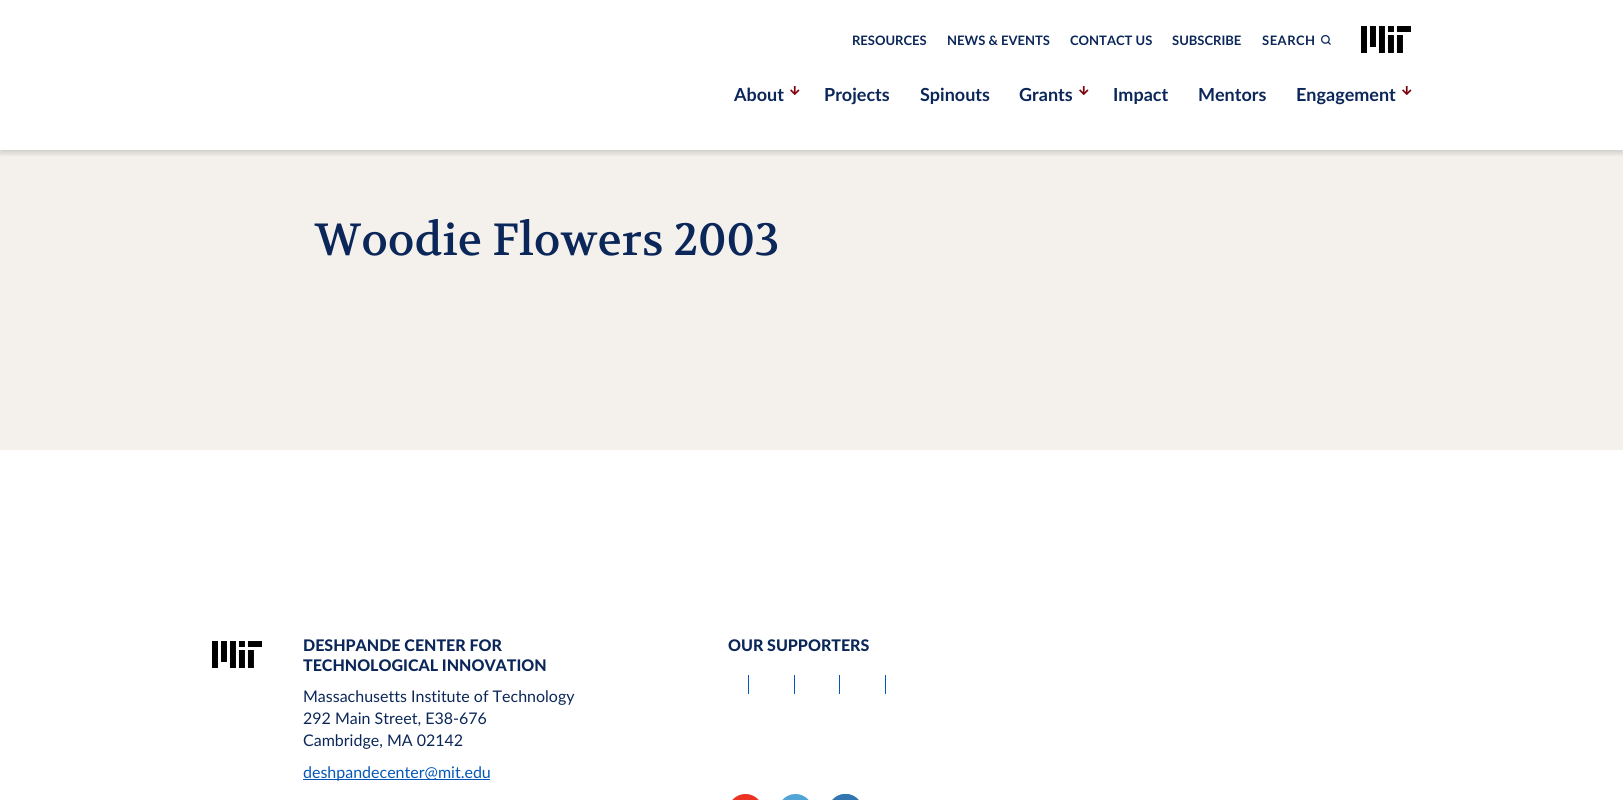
#include <cairo.h>
#include <math.h>
#include <stddef.h>


static void rgb(cairo_t *cr, int r, int g, int b)
{
	cairo_set_source_rgb(cr, r / 255.0, g / 255.0, b / 255.0);
}

static void face(cairo_t *cr, const char *family, double size, int italic, int bold)
{
	cairo_select_font_face(cr, family, italic ? CAIRO_FONT_SLANT_ITALIC : CAIRO_FONT_SLANT_NORMAL,
		bold ? CAIRO_FONT_WEIGHT_BOLD : CAIRO_FONT_WEIGHT_NORMAL);
	cairo_set_font_size(cr, size);
}

static void label(cairo_t *cr, double x, double y, const char *s)
{
	cairo_move_to(cr, x, y);
	cairo_show_text(cr, s);
}

static void tracked(cairo_t *cr, double x, double y, const char *s, double letter, double word)
{
	cairo_move_to(cr, x, y);
	while (*s) {
		char ch[5] = {0};
		int n = 0;
		do ch[n++] = *s++; while ((*s & 0xC0) == 0x80);
		cairo_show_text(cr, ch);
		cairo_rel_move_to(cr, letter + word * (*ch == ' '), 0);
	}
}

static void rect(cairo_t *cr, double x, double y, double w, double h)
{
	cairo_rectangle(cr, x, y, w, h);
	cairo_fill(cr);
}

static void rrect(cairo_t *cr, double x, double y, double w, double h, double r)
{
	cairo_new_sub_path(cr);
	cairo_arc(cr, x + w - r, y + h - r, r, 0, M_PI / 2);
	cairo_arc(cr, x + r, y + h - r, r, M_PI / 2, M_PI);
	cairo_arc(cr, x + r, y + r, r, M_PI, 1.5 * M_PI);
	cairo_arc(cr, x + w - r, y + r, r, 1.5 * M_PI, 2 * M_PI);
	cairo_close_path(cr);
}

static void soft_shadow(cairo_t *cr, double x, double y, double w, double h, double r, double blur, double alpha)
{
	cairo_push_group_with_content(cr, CAIRO_CONTENT_ALPHA);
	cairo_set_operator(cr, CAIRO_OPERATOR_SOURCE);
	for (int i = 15; i >= -15 && fmin(w, h) + blur * i / 3 > 0; i -= 2) {
		double e = blur * i / 6;
		cairo_set_source_rgba(cr, 0, 0, 0, alpha * erfc((i - 1) / 8.5) / 2);
		rrect(cr, x - e, y - e, w + 2 * e, h + 2 * e, fmax(0, fmin(r + e + blur * .6, fmin(w, h) / 2 + e)));
		cairo_fill(cr);
	}
	cairo_pattern_t *soft = cairo_pop_group(cr);
	cairo_mask(cr, soft);
	cairo_pattern_destroy(soft);
}

static void image(cairo_t *cr, const char *path, double x, double y, double w, double h)
{
	cairo_surface_t *image = cairo_image_surface_create_from_png(path);
	cairo_save(cr);
	cairo_set_source_surface(cr, image, x, y);
	cairo_rectangle(cr, x, y, w, h);
	cairo_fill(cr);
	cairo_restore(cr);
	cairo_surface_destroy(image);
}

static void draw(cairo_t *cr) {
	rgb(cr, 255, 255, 255);
	cairo_paint(cr);
	rgb(cr, 244, 241, 237);
	rect(cr, 0, 150, 1623, 300);
	cairo_save(cr);
	cairo_rectangle(cr, 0, 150, 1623, 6);
	cairo_clip(cr);
	rgb(cr, 0, 0, 0);
	soft_shadow(cr, 0, 3, 1623, 150, 0, 3, 0.16);
	cairo_restore(cr);
	face(cr, "Lato", 13, 0, 1);
	rgb(cr, 11, 38, 88);
	label(cr, 852, 45, "RESOURCES");
	label(cr, 947, 45, "NEWS & EVENTS");
	label(cr, 1070, 45, "CONTACT US");
	label(cr, 1172, 45, "SUBSCRIBE");
	tracked(cr, 1262, 45, "SEARCH", 0.5, 0);
	image(cr, "image0.png", 1321, 35, 10, 10);
	image(cr, "image1.png", 1361, 26, 50, 27);
	face(cr, "Lato", 18, 0, 1);
	label(cr, 734, 101, "About");
	image(cr, "image2.png", 790, 86, 10, 9);
	label(cr, 824, 101, "Projects");
	label(cr, 920, 101, "Spinouts");
	label(cr, 1019, 101, "Grants");
	image(cr, "image2.png", 1079, 86, 10, 9);
	label(cr, 1113, 101, "Impact");
	label(cr, 1198, 101, "Mentors");
	label(cr, 1296, 101, "Engagement");
	image(cr, "image2.png", 1402, 86, 10, 9);
	face(cr, "Volkhov", 45, 0, 0);
	label(cr, 315, 255, "Woodie Flowers 2003");
	image(cr, "image1.png", 212, 641, 50, 27);
	face(cr, "Lato Black", 16, 0, 0);
	label(cr, 303, 651, "DESHPANDE CENTER FOR");
	label(cr, 303, 671, "TECHNOLOGICAL INNOVATION");
	face(cr, "Lato", 16, 0, 0);
	label(cr, 303, 702, "Massachusetts Institute of Technology");
	label(cr, 303, 724, "292 Main Street, E38-676");
	label(cr, 303, 746, "Cambridge, MA 02142");
	rgb(cr, 4, 87, 185);
	rect(cr, 303, 779, 187, 1);
	label(cr, 303, 778, "deshpandecenter@mit.edu");
	face(cr, "Lato Black", 16, 0, 0);
	rgb(cr, 11, 38, 88);
	label(cr, 728, 651, "OUR SUPPORTERS");
	rgb(cr, 4, 87, 185);
	rect(cr, 748, 675, 1, 19);
	rect(cr, 794, 675, 1, 19);
	rect(cr, 839, 675, 1, 19);
	rect(cr, 885, 675, 1, 19);
	image(cr, "image3.png", 732, 794, 27, 6);
	image(cr, "image4.png", 782, 794, 27, 6);
	image(cr, "image5.png", 832, 794, 27, 6);
}

int main(void) {
	cairo_surface_t *surface = cairo_image_surface_create(CAIRO_FORMAT_RGB24, 1623, 800);
	cairo_t *cr = cairo_create(surface);
	cairo_font_options_t *options = cairo_font_options_create();
	cairo_font_options_set_hint_metrics(options, CAIRO_HINT_METRICS_OFF);
	cairo_font_options_set_hint_style(options, CAIRO_HINT_STYLE_NONE);
	cairo_set_font_options(cr, options);
	cairo_set_miter_limit(cr, 4);
	draw(cr);
	cairo_surface_write_to_png(surface, "render.png");
	cairo_font_options_destroy(options);
	cairo_destroy(cr);
	cairo_surface_destroy(surface);
	return 0;
}
